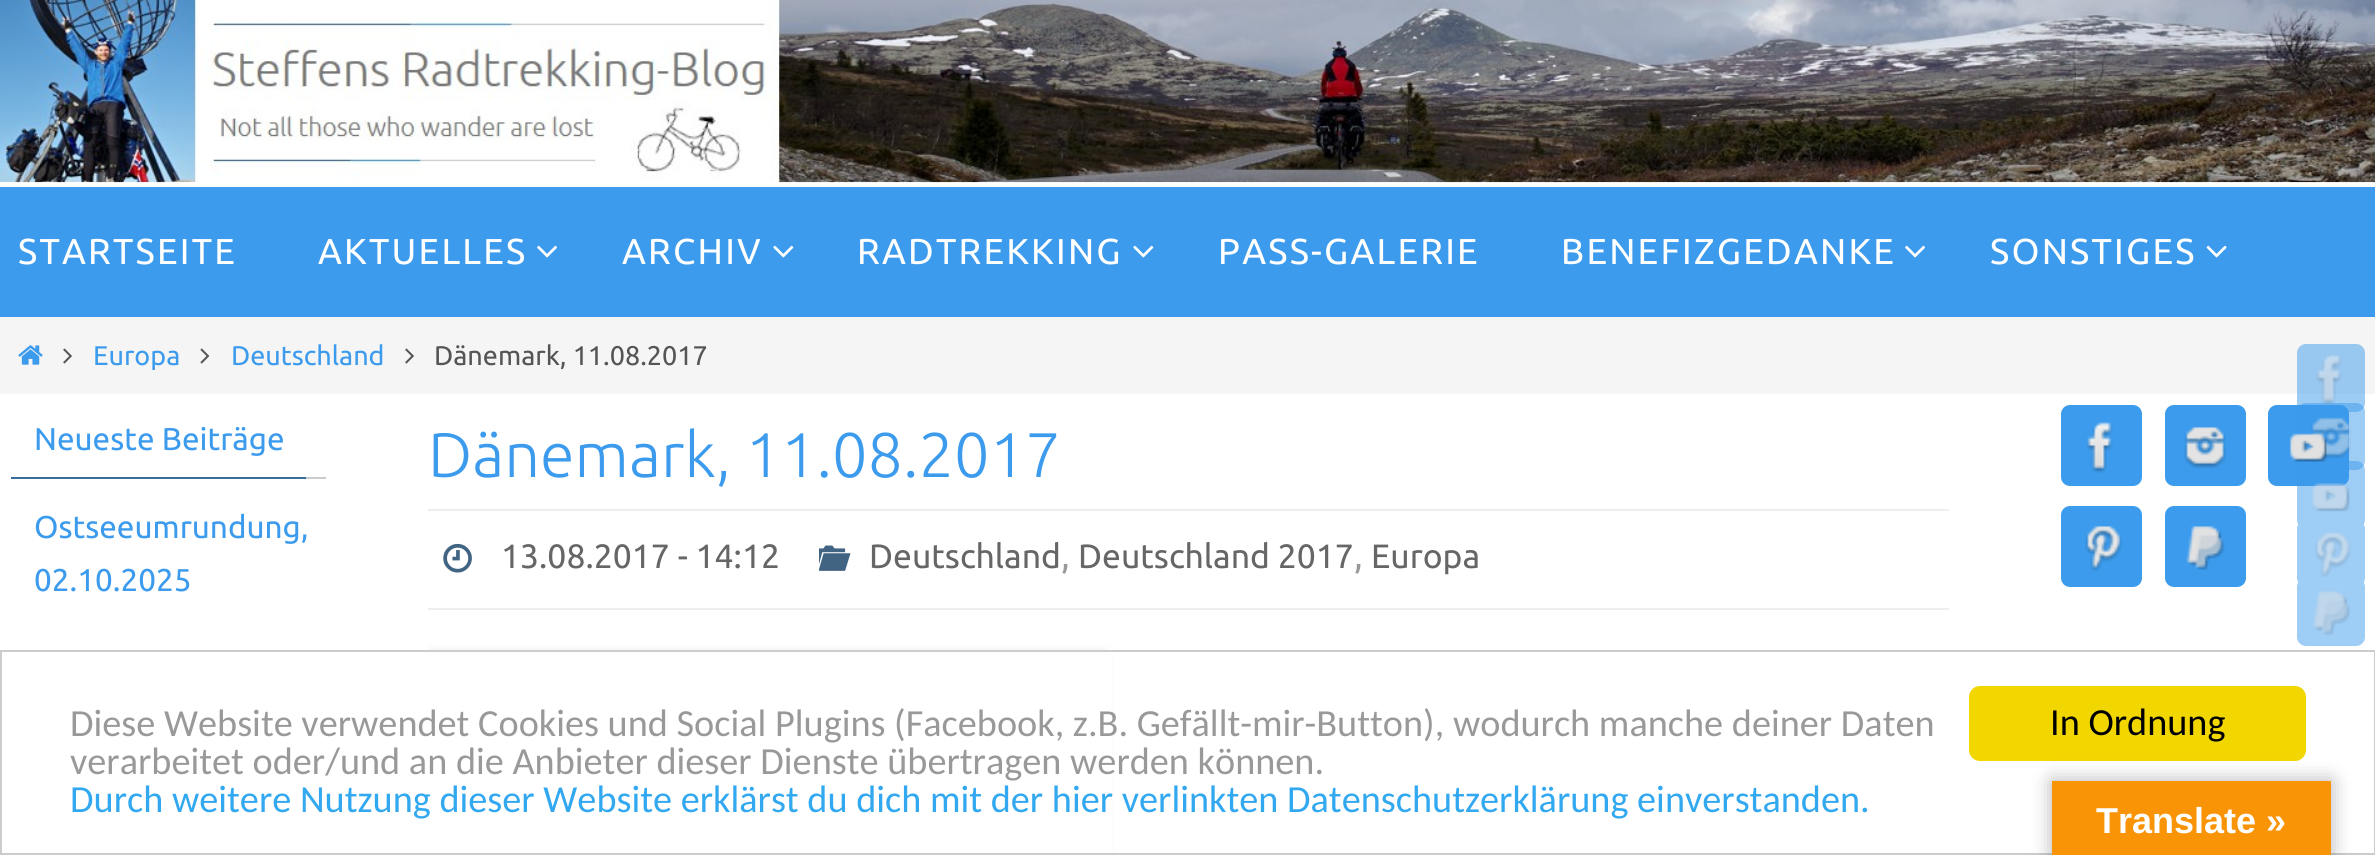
#include <cairo.h>
#include <math.h>
#include <stddef.h>


static void rgb(cairo_t *cr, int r, int g, int b)
{
	cairo_set_source_rgb(cr, r / 255.0, g / 255.0, b / 255.0);
}

static void face(cairo_t *cr, const char *family, double size, int italic, int bold)
{
	cairo_select_font_face(cr, family, italic ? CAIRO_FONT_SLANT_ITALIC : CAIRO_FONT_SLANT_NORMAL,
		bold ? CAIRO_FONT_WEIGHT_BOLD : CAIRO_FONT_WEIGHT_NORMAL);
	cairo_set_font_size(cr, size);
}

static void label(cairo_t *cr, double x, double y, const char *s)
{
	cairo_move_to(cr, x, y);
	cairo_show_text(cr, s);
}

static void tracked(cairo_t *cr, double x, double y, const char *s, double letter, double word)
{
	cairo_move_to(cr, x, y);
	while (*s) {
		char ch[5] = {0};
		int n = 0;
		do ch[n++] = *s++; while ((*s & 0xC0) == 0x80);
		cairo_show_text(cr, ch);
		cairo_rel_move_to(cr, letter + word * (*ch == ' '), 0);
	}
}

static void rect(cairo_t *cr, double x, double y, double w, double h)
{
	cairo_rectangle(cr, x, y, w, h);
	cairo_fill(cr);
}

static void rrect(cairo_t *cr, double x, double y, double w, double h, double r)
{
	cairo_new_sub_path(cr);
	cairo_arc(cr, x + w - r, y + h - r, r, 0, M_PI / 2);
	cairo_arc(cr, x + r, y + h - r, r, M_PI / 2, M_PI);
	cairo_arc(cr, x + r, y + r, r, M_PI, 1.5 * M_PI);
	cairo_arc(cr, x + w - r, y + r, r, 1.5 * M_PI, 2 * M_PI);
	cairo_close_path(cr);
}

static void soft_shadow(cairo_t *cr, double x, double y, double w, double h, double r, double blur, double alpha)
{
	cairo_push_group_with_content(cr, CAIRO_CONTENT_ALPHA);
	cairo_set_operator(cr, CAIRO_OPERATOR_SOURCE);
	for (int i = 15; i >= -15 && fmin(w, h) + blur * i / 3 > 0; i -= 2) {
		double e = blur * i / 6;
		cairo_set_source_rgba(cr, 0, 0, 0, alpha * erfc((i - 1) / 8.5) / 2);
		rrect(cr, x - e, y - e, w + 2 * e, h + 2 * e, fmax(0, fmin(r + e + blur * .6, fmin(w, h) / 2 + e)));
		cairo_fill(cr);
	}
	cairo_pattern_t *soft = cairo_pop_group(cr);
	cairo_mask(cr, soft);
	cairo_pattern_destroy(soft);
}

static void image(cairo_t *cr, const char *path, double x, double y, double w, double h)
{
	cairo_surface_t *image = cairo_image_surface_create_from_png(path);
	cairo_save(cr);
	cairo_set_source_surface(cr, image, x, y);
	cairo_rectangle(cr, x, y, w, h);
	cairo_fill(cr);
	cairo_restore(cr);
	cairo_surface_destroy(image);
}

static void draw(cairo_t *cr) {
	rgb(cr, 255, 255, 255);
	cairo_paint(cr);
	image(cr, "image0.png", 0, 0, 2375, 183);
	rgb(cr, 60, 155, 237);
	rect(cr, 0, 187, 2375, 130);
	face(cr, "Ubuntu", 36, 0, 0);
	rgb(cr, 255, 255, 255);
	tracked(cr, 18, 264, "STARTSEITE", 2.25, 0);
	tracked(cr, 318, 264, "AKTUELLES", 2.25, 0);
	image(cr, "image1.png", 537, 245, 21, 13);
	tracked(cr, 622, 264, "ARCHIV", 2.25, 0);
	image(cr, "image2.png", 773, 245, 21, 13);
	tracked(cr, 857, 264, "RADTREKKING", 2.25, 0);
	image(cr, "image2.png", 1133, 245, 21, 13);
	tracked(cr, 1218, 264, "PASS-GALERIE", 2.25, 0);
	tracked(cr, 1561, 264, "BENEFIZGEDANKE", 2.25, 0);
	image(cr, "image1.png", 1905, 245, 21, 13);
	tracked(cr, 1990, 264, "SONSTIGES", 2.25, 0);
	image(cr, "image3.png", 2206, 245, 21, 13);
	rgb(cr, 245, 245, 245);
	rect(cr, 0, 317, 2375, 77);
	image(cr, "image4.png", 18, 345, 25, 20);
	image(cr, "image5.png", 63, 348, 9, 16);
	face(cr, "Ubuntu", 27, 0, 0);
	rgb(cr, 60, 155, 237);
	label(cr, 93, 365, "Europa");
	image(cr, "image6.png", 200, 348, 10, 16);
	label(cr, 231, 365, "Deutschland");
	image(cr, "image5.png", 405, 348, 9, 16);
	rgb(cr, 85, 85, 85);
	label(cr, 434, 365, "Dänemark, 11.08.2017");
	rgb(cr, 60, 155, 237);
	rrect(cr, 2268, 405, 81, 81, 9);
	cairo_fill(cr);
	cairo_set_source_rgba(cr, 0.235, 0.608, 0.929, 0.5);
	rrect(cr, 2297, 344, 68, 68, 9);
	cairo_fill(cr);
	rrect(cr, 2297, 403, 68, 67, 9);
	cairo_fill(cr);
	image(cr, "image7.png", 2316, 355, 26, 50);
	image(cr, "image8.png", 2311, 417, 40, 42);
	rrect(cr, 2297, 461, 68, 68, 9);
	cairo_fill(cr);
	image(cr, "image9.png", 2312, 483, 38, 29);
	rgb(cr, 158, 205, 246);
	rrect(cr, 2297, 520, 68, 67, 9);
	cairo_fill(cr);
	image(cr, "image10.png", 2315, 532, 36, 45);
	rrect(cr, 2297, 578, 68, 68, 9);
	cairo_fill(cr);
	image(cr, "image11.png", 2312, 591, 38, 44);
	rgb(cr, 204, 204, 204);
	rect(cr, 306, 477, 20, 2);
	rgb(cr, 54, 109, 157);
	rect(cr, 11, 477, 295, 2);
	face(cr, "Ubuntu", 31.5, 0, 0);
	rgb(cr, 60, 155, 237);
	label(cr, 34, 450, "Neueste Beiträge");
	label(cr, 34, 538, "Ostseeumrundung,");
	label(cr, 34, 591, "02.10.2025");
	face(cr, "Ubuntu Light", 63, 0, 0);
	label(cr, 428, 477, "Dänemark, 11.08.2017");
	rgb(cr, 238, 238, 238);
	rect(cr, 428, 509, 1521, 2);
	rect(cr, 428, 608, 1521, 2);
	image(cr, "image12.png", 443, 543, 29, 30);
	face(cr, "Ubuntu", 33.75, 0, 0);
	rgb(cr, 102, 102, 102);
	label(cr, 501, 568, "13.08.2017 - 14:12");
	image(cr, "image13.png", 819, 545, 32, 26);
	label(cr, 869, 568, "Deutschland");
	face(cr, "Ubuntu", 36, 0, 0);
	rgb(cr, 153, 153, 153);
	label(cr, 1061, 568, ",");
	face(cr, "Ubuntu", 33.75, 0, 0);
	rgb(cr, 102, 102, 102);
	label(cr, 1078, 568, "Deutschland 2017");
	face(cr, "Ubuntu", 36, 0, 0);
	rgb(cr, 153, 153, 153);
	label(cr, 1354, 568, ",");
	face(cr, "Ubuntu", 33.75, 0, 0);
	rgb(cr, 102, 102, 102);
	label(cr, 1371, 568, "Europa");
	cairo_save(cr);
	cairo_rectangle(cr, 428, 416, 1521, 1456);
	cairo_clip(cr);
	rgb(cr, 205, 205, 205);
	soft_shadow(cr, 428, 655, 675, 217, 0, 5.5, 1);
	cairo_restore(cr);
	rgb(cr, 60, 155, 237);
	rrect(cr, 2061, 405, 81, 81, 9);
	cairo_fill(cr);
	image(cr, "image14.png", 2086, 422, 27, 51);
	rrect(cr, 2165, 405, 81, 81, 9);
	cairo_fill(cr);
	image(cr, "image15.png", 2184, 427, 42, 42);
	image(cr, "image16.png", 2290, 433, 37, 29);
	rrect(cr, 2061, 506, 81, 81, 9);
	cairo_fill(cr);
	image(cr, "image17.png", 2085, 526, 37, 45);
	rrect(cr, 2165, 506, 81, 81, 9);
	cairo_fill(cr);
	image(cr, "image18.png", 2186, 526, 39, 44);
	rgb(cr, 255, 255, 255);
	rect(cr, 428, 652, 684, 201);
	cairo_rectangle(cr, 1, 651, 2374, 203);
	rgb(cr, 204, 204, 204);
	cairo_stroke(cr);
	rgb(cr, 241, 214, 0);
	rrect(cr, 1969, 686, 337, 75, 11);
	cairo_fill(cr);
	rgb(cr, 0, 0, 0);
	soft_shadow(cr, 2052, 781, 279, 74, 0, 10, 0.3);
	rgb(cr, 248, 148, 6);
	rect(cr, 2052, 781, 279, 74);
	face(cr, "Liberation Sans", 36, 0, 1);
	rgb(cr, 255, 255, 255);
	label(cr, 2096, 833, "Translate »");
	face(cr, "Carlito", 38.25, 0, 0);
	rgb(cr, 153, 153, 153);
	label(cr, 70, 736, "Diese Website verwendet Cookies und Social Plugins (Facebook, z.B. Gefällt-mir-Button), wodurch manche deiner Daten");
	label(cr, 70, 774, "verarbeitet oder/und an die Anbieter dieser Dienste übertragen werden können.");
	rgb(cr, 49, 168, 240);
	label(cr, 70, 812, "Durch weitere Nutzung dieser Website erklärst du dich mit der hier verlinkten Datenschutzerklärung einverstanden.");
	rgb(cr, 0, 0, 0);
	label(cr, 2050, 735, "In Ordnung");
}

int main(void) {
	cairo_surface_t *surface = cairo_image_surface_create(CAIRO_FORMAT_RGB24, 2375, 855);
	cairo_t *cr = cairo_create(surface);
	cairo_font_options_t *options = cairo_font_options_create();
	cairo_font_options_set_hint_metrics(options, CAIRO_HINT_METRICS_OFF);
	cairo_font_options_set_hint_style(options, CAIRO_HINT_STYLE_NONE);
	cairo_set_font_options(cr, options);
	cairo_set_miter_limit(cr, 4);
	draw(cr);
	cairo_surface_write_to_png(surface, "render.png");
	cairo_font_options_destroy(options);
	cairo_destroy(cr);
	cairo_surface_destroy(surface);
	return 0;
}
